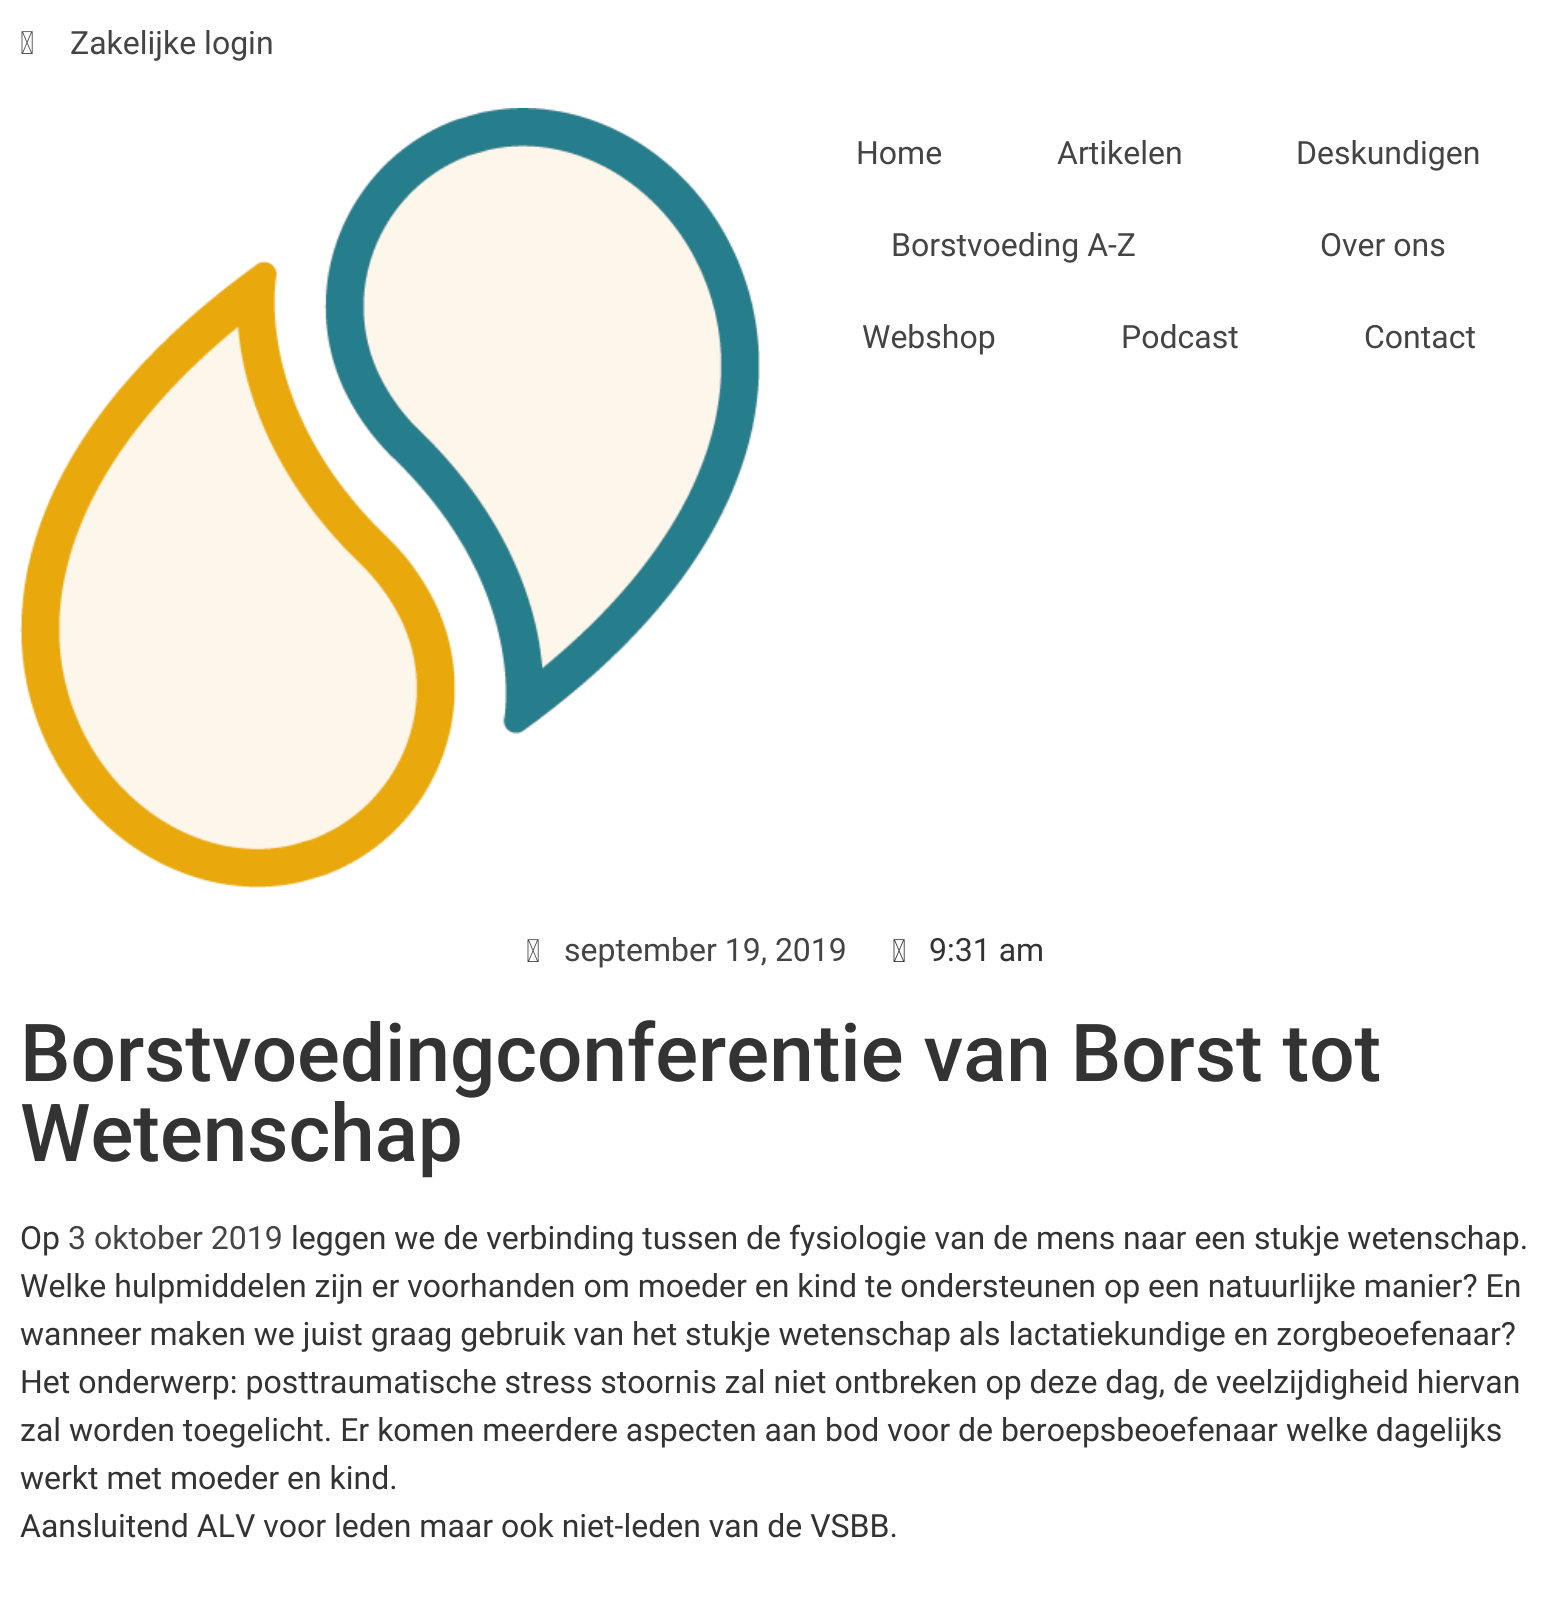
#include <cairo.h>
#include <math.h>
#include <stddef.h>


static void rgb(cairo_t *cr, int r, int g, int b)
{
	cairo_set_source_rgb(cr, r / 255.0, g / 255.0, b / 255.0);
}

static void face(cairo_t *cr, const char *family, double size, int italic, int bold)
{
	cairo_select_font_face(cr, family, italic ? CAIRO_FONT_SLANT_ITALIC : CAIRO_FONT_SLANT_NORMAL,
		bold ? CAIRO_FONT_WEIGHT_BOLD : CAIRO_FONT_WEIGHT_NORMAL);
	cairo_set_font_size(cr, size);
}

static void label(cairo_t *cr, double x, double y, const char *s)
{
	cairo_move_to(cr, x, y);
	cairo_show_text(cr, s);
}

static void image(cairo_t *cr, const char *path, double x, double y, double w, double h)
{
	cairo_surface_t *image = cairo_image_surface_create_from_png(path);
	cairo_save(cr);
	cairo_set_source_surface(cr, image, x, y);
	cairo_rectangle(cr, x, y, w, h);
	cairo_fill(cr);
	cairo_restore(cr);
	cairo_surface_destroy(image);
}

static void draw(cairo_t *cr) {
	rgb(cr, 255, 255, 255);
	cairo_paint(cr);
	image(cr, "image0.png", 21, 31, 12, 23);
	face(cr, "Roboto", 32, 0, 0);
	rgb(cr, 68, 68, 68);
	label(cr, 70, 54, "Zakelijke login");
	image(cr, "image1.png", 20, 108, 740, 780);
	label(cr, 856, 164, "Home");
	label(cr, 1057, 164, "Artikelen");
	label(cr, 1296, 164, "Deskundigen");
	label(cr, 891, 256, "Borstvoeding A-Z");
	label(cr, 1320, 256, "Over ons");
	label(cr, 862, 348, "Webshop");
	label(cr, 1121, 348, "Podcast");
	label(cr, 1364, 348, "Contact");
	image(cr, "image0.png", 527, 939, 12, 23);
	label(cr, 564, 961, "september 19, 2019");
	image(cr, "image2.png", 893, 939, 12, 23);
	rgb(cr, 51, 51, 51);
	label(cr, 929, 961, "9:31 am");
	face(cr, "Roboto Medium", 80, 0, 0);
	label(cr, 20, 1081, "Borstvoedingconferentie van Borst tot");
	label(cr, 20, 1161, "Wetenschap");
	face(cr, "Roboto", 32, 0, 0);
	label(cr, 20, 1249, "Op");
	rgb(cr, 68, 68, 68);
	label(cr, 68, 1249, "3 oktober 2019");
	rgb(cr, 51, 51, 51);
	label(cr, 291, 1249, "leggen we de verbinding tussen de fysiologie van de mens naar een stukje wetenschap.");
	label(cr, 20, 1297, "Welke hulpmiddelen zijn er voorhanden om moeder en kind te ondersteunen op een natuurlijke manier? En");
	label(cr, 20, 1345, "wanneer maken we juist graag gebruik van het stukje wetenschap als lactatiekundige en zorgbeoefenaar?");
	label(cr, 20, 1393, "Het onderwerp: posttraumatische stress stoornis zal niet ontbreken op deze dag, de veelzijdigheid hiervan");
	label(cr, 20, 1441, "zal worden toegelicht. Er komen meerdere aspecten aan bod voor de beroepsbeoefenaar welke dagelijks");
	label(cr, 20, 1489, "werkt met moeder en kind.");
	label(cr, 20, 1537, "Aansluitend ALV voor leden maar ook niet-leden van de VSBB.");
}

int main(void) {
	cairo_surface_t *surface = cairo_image_surface_create(CAIRO_FORMAT_RGB24, 1557, 1597);
	cairo_t *cr = cairo_create(surface);
	cairo_font_options_t *options = cairo_font_options_create();
	cairo_font_options_set_hint_metrics(options, CAIRO_HINT_METRICS_OFF);
	cairo_font_options_set_hint_style(options, CAIRO_HINT_STYLE_NONE);
	cairo_set_font_options(cr, options);
	cairo_set_miter_limit(cr, 4);
	draw(cr);
	cairo_surface_write_to_png(surface, "render.png");
	cairo_font_options_destroy(options);
	cairo_destroy(cr);
	cairo_surface_destroy(surface);
	return 0;
}
